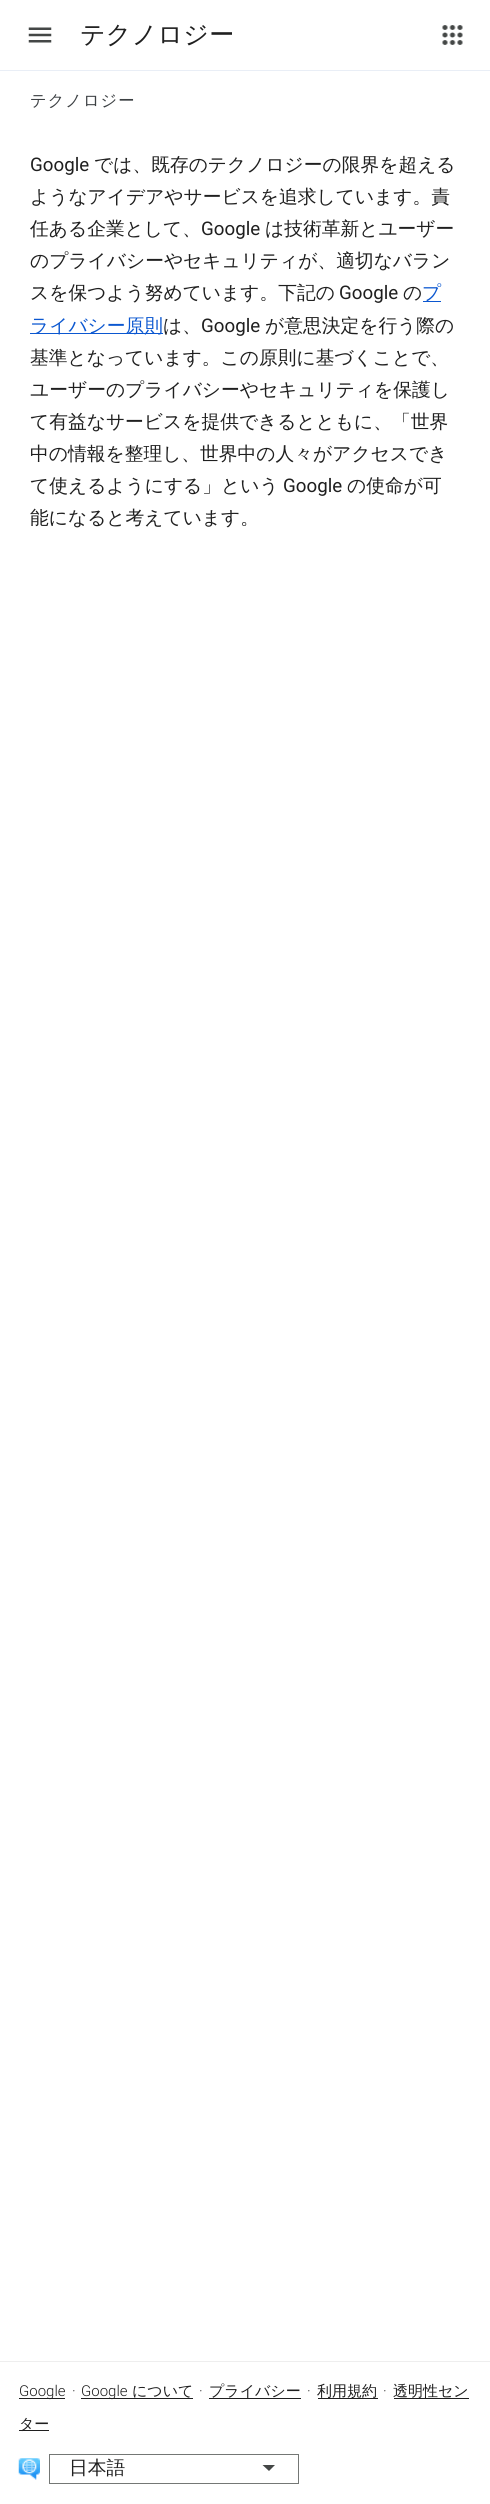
#include <cairo.h>
#include <math.h>
#include <stddef.h>


static void rgb(cairo_t *cr, int r, int g, int b)
{
	cairo_set_source_rgb(cr, r / 255.0, g / 255.0, b / 255.0);
}

static void face(cairo_t *cr, const char *family, double size, int italic, int bold)
{
	cairo_select_font_face(cr, family, italic ? CAIRO_FONT_SLANT_ITALIC : CAIRO_FONT_SLANT_NORMAL,
		bold ? CAIRO_FONT_WEIGHT_BOLD : CAIRO_FONT_WEIGHT_NORMAL);
	cairo_set_font_size(cr, size);
}

static void label(cairo_t *cr, double x, double y, const char *s)
{
	cairo_move_to(cr, x, y);
	cairo_show_text(cr, s);
}

static void tracked(cairo_t *cr, double x, double y, const char *s, double letter, double word)
{
	cairo_move_to(cr, x, y);
	while (*s) {
		char ch[5] = {0};
		int n = 0;
		do ch[n++] = *s++; while ((*s & 0xC0) == 0x80);
		cairo_show_text(cr, ch);
		cairo_rel_move_to(cr, letter + word * (*ch == ' '), 0);
	}
}

static void rect(cairo_t *cr, double x, double y, double w, double h)
{
	cairo_rectangle(cr, x, y, w, h);
	cairo_fill(cr);
}

static void image(cairo_t *cr, const char *path, double x, double y, double w, double h)
{
	cairo_surface_t *image = cairo_image_surface_create_from_png(path);
	cairo_save(cr);
	cairo_set_source_surface(cr, image, x, y);
	cairo_rectangle(cr, x, y, w, h);
	cairo_fill(cr);
	cairo_restore(cr);
	cairo_surface_destroy(image);
}

static void draw(cairo_t *cr) {
	rgb(cr, 255, 255, 255);
	cairo_paint(cr);
	image(cr, "image0.png", 28, 27, 24, 16);
	face(cr, "WenQuanYi Zen Hei Medium", 25, 0, 0);
	rgb(cr, 31, 31, 31);
	tracked(cr, 80, 43, "テクノロジー", 0.25, 0);
	image(cr, "image1.png", 442, 25, 21, 20);
	rgb(cr, 233, 238, 246);
	rect(cr, 0, 70, 490, 1);
	face(cr, "WenQuanYi Zen Hei Medium", 16.25, 0, 0);
	rgb(cr, 60, 64, 67);
	tracked(cr, 30, 106, "テクノロジー", 1, 0);
	face(cr, "Roboto", 18.75, 0, 0);
	rgb(cr, 31, 31, 31);
	label(cr, 30, 171, "Google");
	face(cr, "WenQuanYi Zen Hei Medium", 18.75, 0, 0);
	label(cr, 94, 171, "では、既存のテクノロジーの限界を超える");
	label(cr, 30, 203, "ようなアイデアやサービスを追求しています。責");
	label(cr, 30, 235, "任ある企業として、");
	face(cr, "Roboto", 18.75, 0, 0);
	label(cr, 201, 235, "Google");
	face(cr, "WenQuanYi Zen Hei Medium", 18.75, 0, 0);
	label(cr, 265, 235, "は技術革新とユーザー");
	label(cr, 30, 267, "のプライバシーやセキュリティが、適切なバラン");
	label(cr, 30, 299, "スを保つよう努めています。下記の");
	face(cr, "Roboto", 18.75, 0, 0);
	label(cr, 339, 299, "Google");
	face(cr, "WenQuanYi Zen Hei Medium", 18.75, 0, 0);
	label(cr, 403, 299, "の");
	rgb(cr, 11, 87, 208);
	rect(cr, 423, 301, 18, 1);
	label(cr, 422, 299, "プ");
	rect(cr, 30, 333, 133, 1);
	label(cr, 30, 332, "ライバシー原則");
	rgb(cr, 31, 31, 31);
	label(cr, 163, 332, "は、");
	face(cr, "Roboto", 18.75, 0, 0);
	label(cr, 201, 332, "Google");
	face(cr, "WenQuanYi Zen Hei Medium", 18.75, 0, 0);
	label(cr, 265, 332, "が意思決定を行う際の");
	label(cr, 30, 364, "基準となっています。この原則に基づくことで、");
	label(cr, 30, 396, "ユーザーのプライバシーやセキュリティを保護し");
	label(cr, 30, 428, "て有益なサービスを提供できるとともに、「世界");
	label(cr, 30, 460, "中の情報を整理し、世界中の人々がアクセスでき");
	label(cr, 30, 492, "て使えるようにする」という");
	face(cr, "Roboto", 18.75, 0, 0);
	label(cr, 283, 492, "Google");
	face(cr, "WenQuanYi Zen Hei Medium", 18.75, 0, 0);
	label(cr, 347, 492, "の使命が可");
	label(cr, 30, 524, "能になると考えています。");
	rgb(cr, 238, 238, 238);
	rect(cr, 0, 2361, 490, 1);
	rgb(cr, 31, 31, 31);
	rect(cr, 19, 2398, 46, 1);
	face(cr, "Roboto Light", 15, 0, 0);
	label(cr, 19, 2396, "Google");
	label(cr, 72, 2396, "·");
	rect(cr, 81, 2398, 112, 1);
	label(cr, 81, 2396, "Google");
	face(cr, "WenQuanYi Zen Hei Medium", 15, 0, 0);
	label(cr, 132, 2396, "について");
	face(cr, "Roboto Light", 15, 0, 0);
	label(cr, 199, 2396, "·");
	face(cr, "WenQuanYi Zen Hei Medium", 15, 0, 0);
	label(cr, 209, 2396, "プライバシー");
	rect(cr, 209, 2398, 92, 1);
	face(cr, "Roboto Light", 15, 0, 0);
	label(cr, 307, 2396, "·");
	rect(cr, 318, 2398, 60, 1);
	face(cr, "WenQuanYi Zen Hei Medium", 15, 0, 0);
	label(cr, 317, 2396, "利用規約");
	face(cr, "Roboto Light", 15, 0, 0);
	label(cr, 383, 2396, "·");
	face(cr, "WenQuanYi Zen Hei Medium", 15, 0, 0);
	label(cr, 393, 2396, "透明性セン");
	rect(cr, 394, 2398, 75, 1);
	rect(cr, 19, 2430, 30, 1);
	label(cr, 19, 2429, "ター");
	image(cr, "image2.png", 18, 2458, 22, 22);
	rgb(cr, 116, 119, 117);
	rect(cr, 49, 2454, 250, 1);
	rect(cr, 49, 2483, 15, 1);
	rect(cr, 49, 2454, 1, 30);
	rect(cr, 298, 2454, 1, 30);
	rect(cr, 64, 2483, 235, 1);
	face(cr, "WenQuanYi Zen Hei Medium", 18.75, 0, 0);
	rgb(cr, 31, 31, 31);
	label(cr, 69, 2474, "日本語");
	rgb(cr, 68, 71, 70);
	cairo_set_fill_rule(cr, CAIRO_FILL_RULE_EVEN_ODD);
	cairo_new_path(cr);
	cairo_move_to(cr, 262.5, 2465);
	cairo_line_to(cr, 269, 2471);
	cairo_line_to(cr, 275, 2465);
	cairo_close_path(cr);
	cairo_fill(cr);
}

int main(void) {
	cairo_surface_t *surface = cairo_image_surface_create(CAIRO_FORMAT_RGB24, 490, 2504);
	cairo_t *cr = cairo_create(surface);
	cairo_font_options_t *options = cairo_font_options_create();
	cairo_font_options_set_hint_metrics(options, CAIRO_HINT_METRICS_OFF);
	cairo_font_options_set_hint_style(options, CAIRO_HINT_STYLE_NONE);
	cairo_set_font_options(cr, options);
	cairo_set_miter_limit(cr, 4);
	draw(cr);
	cairo_surface_write_to_png(surface, "render.png");
	cairo_font_options_destroy(options);
	cairo_destroy(cr);
	cairo_surface_destroy(surface);
	return 0;
}
